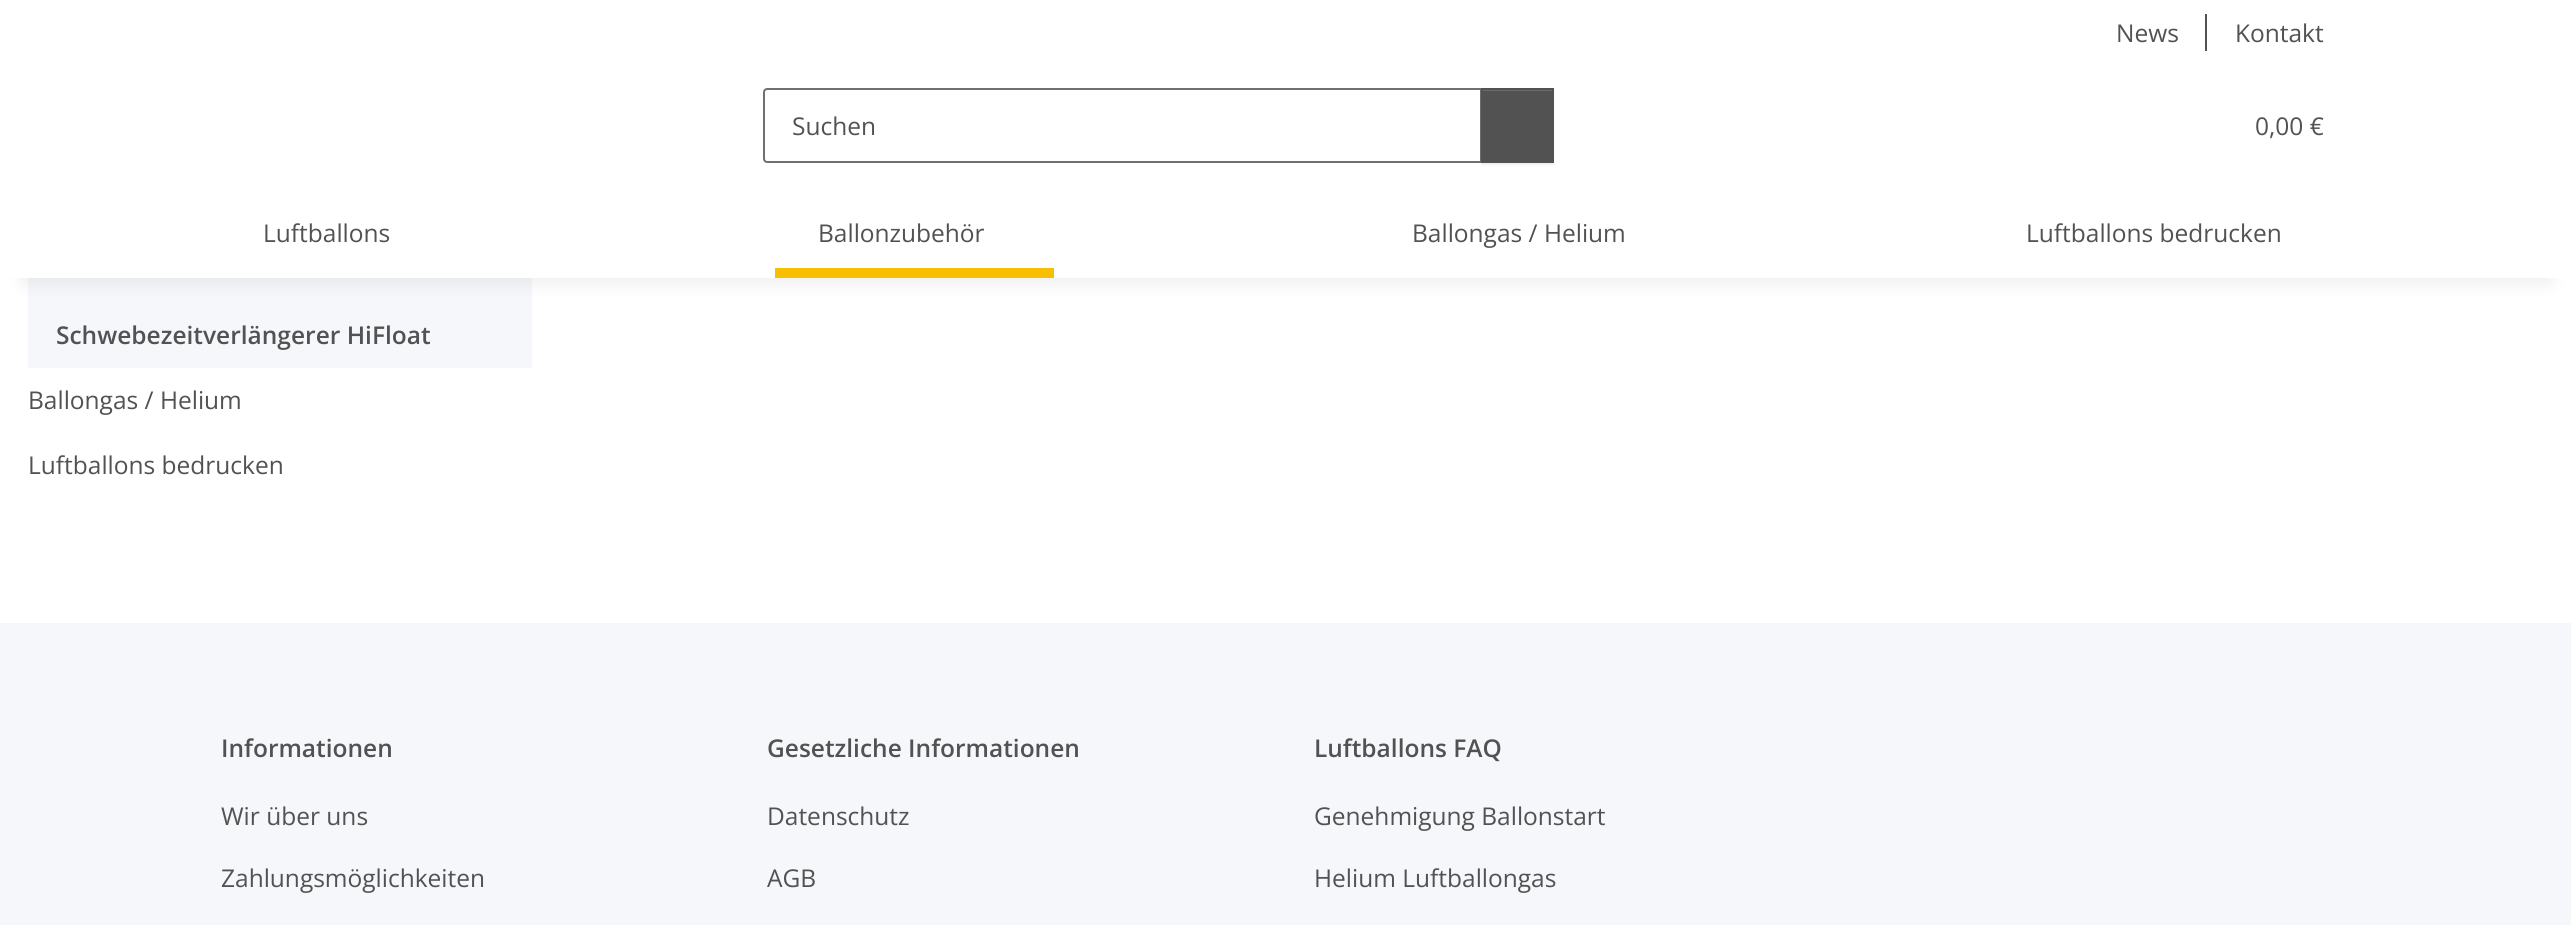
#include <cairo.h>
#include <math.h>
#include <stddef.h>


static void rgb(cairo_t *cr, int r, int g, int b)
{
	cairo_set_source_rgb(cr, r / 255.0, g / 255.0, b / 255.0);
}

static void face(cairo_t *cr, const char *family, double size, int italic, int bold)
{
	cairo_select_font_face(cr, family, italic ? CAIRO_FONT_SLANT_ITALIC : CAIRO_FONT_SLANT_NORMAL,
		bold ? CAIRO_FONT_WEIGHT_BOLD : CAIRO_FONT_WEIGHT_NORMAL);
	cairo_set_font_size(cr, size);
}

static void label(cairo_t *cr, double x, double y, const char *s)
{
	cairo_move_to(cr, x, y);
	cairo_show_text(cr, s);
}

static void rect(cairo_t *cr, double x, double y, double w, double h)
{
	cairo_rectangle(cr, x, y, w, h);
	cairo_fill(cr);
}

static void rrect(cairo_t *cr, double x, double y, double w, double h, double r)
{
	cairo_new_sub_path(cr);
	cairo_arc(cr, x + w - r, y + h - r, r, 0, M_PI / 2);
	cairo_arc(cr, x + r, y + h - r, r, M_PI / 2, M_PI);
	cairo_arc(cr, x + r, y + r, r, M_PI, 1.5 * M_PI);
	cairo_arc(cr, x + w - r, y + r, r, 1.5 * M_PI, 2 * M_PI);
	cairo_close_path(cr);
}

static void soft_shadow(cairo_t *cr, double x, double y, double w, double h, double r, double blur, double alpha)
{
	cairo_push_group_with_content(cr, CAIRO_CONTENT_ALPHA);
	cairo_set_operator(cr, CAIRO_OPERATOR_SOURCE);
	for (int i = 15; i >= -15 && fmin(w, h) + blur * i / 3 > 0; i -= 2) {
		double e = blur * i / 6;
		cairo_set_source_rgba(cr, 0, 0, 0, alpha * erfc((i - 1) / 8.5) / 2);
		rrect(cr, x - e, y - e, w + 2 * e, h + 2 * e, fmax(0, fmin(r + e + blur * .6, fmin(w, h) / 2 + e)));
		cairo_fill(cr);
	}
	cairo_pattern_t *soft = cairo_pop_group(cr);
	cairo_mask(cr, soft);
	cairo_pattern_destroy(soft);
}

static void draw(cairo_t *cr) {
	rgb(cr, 245, 247, 250);
	cairo_paint(cr);
	rgb(cr, 255, 255, 255);
	rect(cr, 0, 278, 2571, 345);
	rgb(cr, 245, 247, 250);
	rect(cr, 28, 278, 504, 90);
	rgb(cr, 0, 0, 0);
	soft_shadow(cr, 21, 49, 2531, 236, 0, 8, 0.06);
	rgb(cr, 255, 255, 255);
	rect(cr, 0, 0, 2571, 278);
	face(cr, "Open Sans", 24.5, 0, 0);
	rgb(cr, 82, 82, 82);
	label(cr, 2116, 42, "News");
	rect(cr, 2205, 14, 2, 37);
	label(cr, 2235, 42, "Kontakt");
	cairo_new_path(cr);
	cairo_move_to(cr, 767, 89);
	cairo_line_to(cr, 1481, 89);
	cairo_line_to(cr, 1481, 162);
	cairo_line_to(cr, 767, 162);
	cairo_curve_to(cr, 765.5, 162, 764, 160.5, 764, 159);
	cairo_line_to(cr, 764, 92);
	cairo_curve_to(cr, 764, 90.5, 765.5, 89, 767, 89);
	cairo_close_path(cr);
	rgb(cr, 112, 112, 112);
	cairo_stroke(cr);
	rgb(cr, 82, 82, 82);
	label(cr, 792, 135, "Suchen");
	rgb(cr, 0, 0, 0);
	soft_shadow(cr, 1481, 89, 73, 76, 0, 1, 0.07);
	rgb(cr, 82, 82, 82);
	rect(cr, 1483, 91, 69, 70);
	rgb(cr, 108, 108, 108);
	rect(cr, 1482, 90, 70, 1);
	cairo_rectangle(cr, 1482, 89, 71, 73);
	rgb(cr, 82, 82, 82);
	cairo_stroke(cr);
	label(cr, 2255, 135, "0,00 €");
	label(cr, 263, 242, "Luftballons");
	label(cr, 818, 242, "Ballonzubehör");
	rgb(cr, 248, 191, 0);
	rect(cr, 775, 268, 279, 10);
	rgb(cr, 82, 82, 82);
	label(cr, 1412, 242, "Ballongas / Helium");
	label(cr, 2026, 242, "Luftballons bedrucken");
	face(cr, "Open Sans SemiBold", 24.5, 0, 0);
	label(cr, 56, 344, "Schwebezeitverlängerer HiFloat");
	face(cr, "Open Sans", 24.5, 0, 0);
	label(cr, 28, 409, "Ballongas / Helium");
	label(cr, 28, 474, "Luftballons bedrucken");
	face(cr, "Open Sans SemiBold", 24.5, 0, 0);
	label(cr, 221, 757, "Informationen");
	face(cr, "Open Sans", 24.5, 0, 0);
	label(cr, 221, 825, "Wir über uns");
	label(cr, 221, 887, "Zahlungsmöglichkeiten");
	face(cr, "Open Sans SemiBold", 24.5, 0, 0);
	label(cr, 767, 757, "Gesetzliche Informationen");
	face(cr, "Open Sans", 24.5, 0, 0);
	label(cr, 767, 825, "Datenschutz");
	label(cr, 767, 887, "AGB");
	face(cr, "Open Sans SemiBold", 24.5, 0, 0);
	label(cr, 1314, 757, "Luftballons FAQ");
	face(cr, "Open Sans", 24.5, 0, 0);
	label(cr, 1314, 825, "Genehmigung Ballonstart");
	label(cr, 1314, 887, "Helium Luftballongas");
}

int main(void) {
	cairo_surface_t *surface = cairo_image_surface_create(CAIRO_FORMAT_RGB24, 2571, 925);
	cairo_t *cr = cairo_create(surface);
	cairo_font_options_t *options = cairo_font_options_create();
	cairo_font_options_set_hint_metrics(options, CAIRO_HINT_METRICS_OFF);
	cairo_font_options_set_hint_style(options, CAIRO_HINT_STYLE_NONE);
	cairo_set_font_options(cr, options);
	cairo_set_miter_limit(cr, 4);
	draw(cr);
	cairo_surface_write_to_png(surface, "render.png");
	cairo_font_options_destroy(options);
	cairo_destroy(cr);
	cairo_surface_destroy(surface);
	return 0;
}
